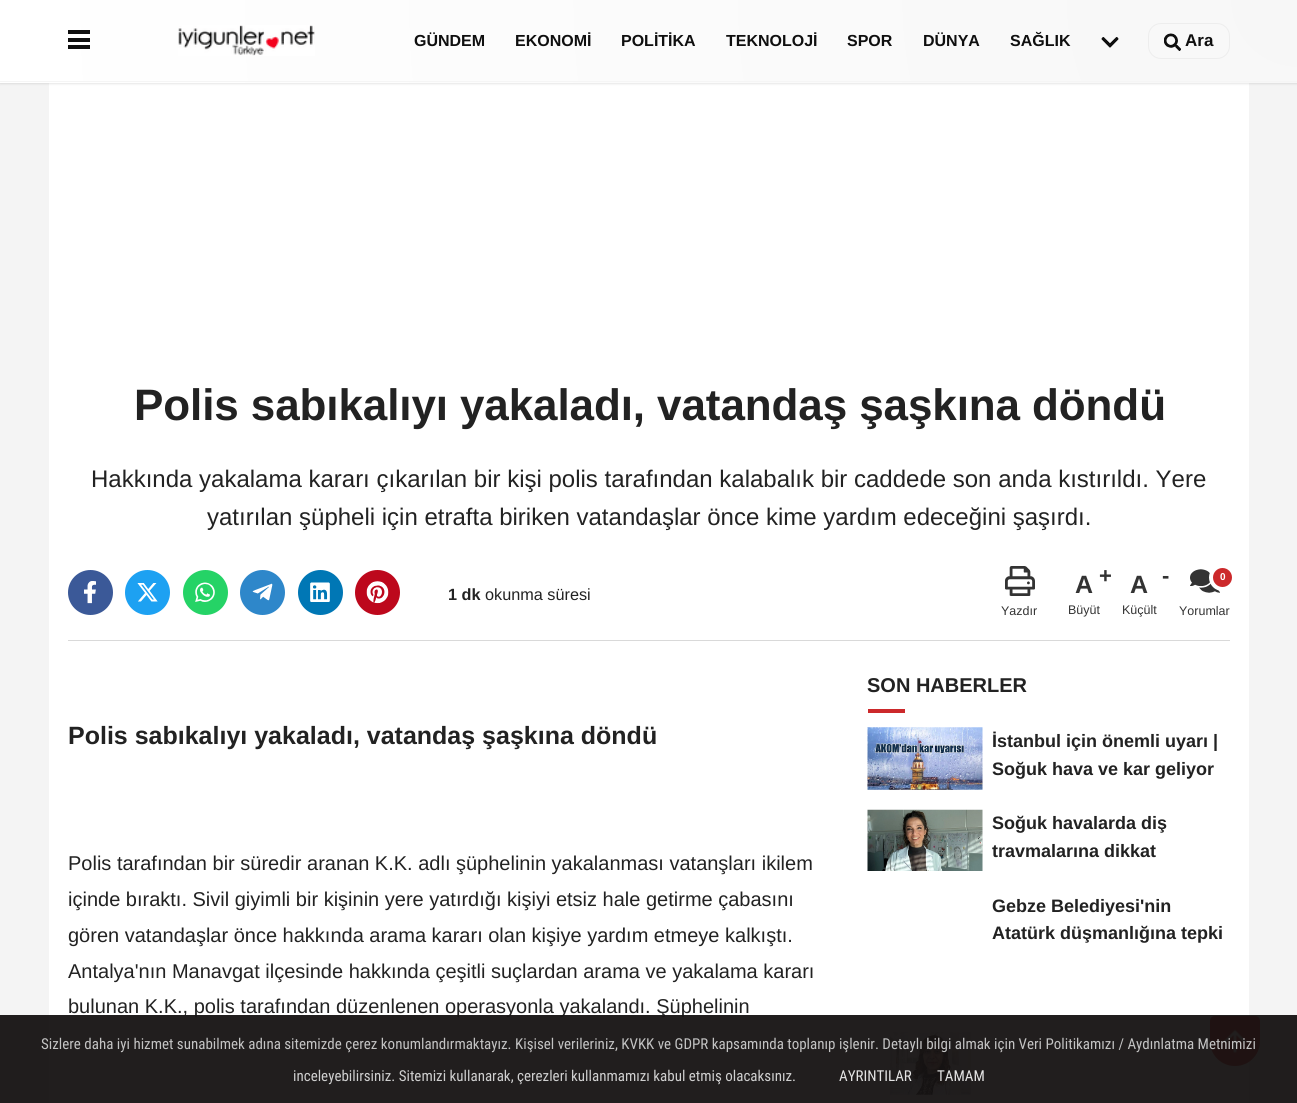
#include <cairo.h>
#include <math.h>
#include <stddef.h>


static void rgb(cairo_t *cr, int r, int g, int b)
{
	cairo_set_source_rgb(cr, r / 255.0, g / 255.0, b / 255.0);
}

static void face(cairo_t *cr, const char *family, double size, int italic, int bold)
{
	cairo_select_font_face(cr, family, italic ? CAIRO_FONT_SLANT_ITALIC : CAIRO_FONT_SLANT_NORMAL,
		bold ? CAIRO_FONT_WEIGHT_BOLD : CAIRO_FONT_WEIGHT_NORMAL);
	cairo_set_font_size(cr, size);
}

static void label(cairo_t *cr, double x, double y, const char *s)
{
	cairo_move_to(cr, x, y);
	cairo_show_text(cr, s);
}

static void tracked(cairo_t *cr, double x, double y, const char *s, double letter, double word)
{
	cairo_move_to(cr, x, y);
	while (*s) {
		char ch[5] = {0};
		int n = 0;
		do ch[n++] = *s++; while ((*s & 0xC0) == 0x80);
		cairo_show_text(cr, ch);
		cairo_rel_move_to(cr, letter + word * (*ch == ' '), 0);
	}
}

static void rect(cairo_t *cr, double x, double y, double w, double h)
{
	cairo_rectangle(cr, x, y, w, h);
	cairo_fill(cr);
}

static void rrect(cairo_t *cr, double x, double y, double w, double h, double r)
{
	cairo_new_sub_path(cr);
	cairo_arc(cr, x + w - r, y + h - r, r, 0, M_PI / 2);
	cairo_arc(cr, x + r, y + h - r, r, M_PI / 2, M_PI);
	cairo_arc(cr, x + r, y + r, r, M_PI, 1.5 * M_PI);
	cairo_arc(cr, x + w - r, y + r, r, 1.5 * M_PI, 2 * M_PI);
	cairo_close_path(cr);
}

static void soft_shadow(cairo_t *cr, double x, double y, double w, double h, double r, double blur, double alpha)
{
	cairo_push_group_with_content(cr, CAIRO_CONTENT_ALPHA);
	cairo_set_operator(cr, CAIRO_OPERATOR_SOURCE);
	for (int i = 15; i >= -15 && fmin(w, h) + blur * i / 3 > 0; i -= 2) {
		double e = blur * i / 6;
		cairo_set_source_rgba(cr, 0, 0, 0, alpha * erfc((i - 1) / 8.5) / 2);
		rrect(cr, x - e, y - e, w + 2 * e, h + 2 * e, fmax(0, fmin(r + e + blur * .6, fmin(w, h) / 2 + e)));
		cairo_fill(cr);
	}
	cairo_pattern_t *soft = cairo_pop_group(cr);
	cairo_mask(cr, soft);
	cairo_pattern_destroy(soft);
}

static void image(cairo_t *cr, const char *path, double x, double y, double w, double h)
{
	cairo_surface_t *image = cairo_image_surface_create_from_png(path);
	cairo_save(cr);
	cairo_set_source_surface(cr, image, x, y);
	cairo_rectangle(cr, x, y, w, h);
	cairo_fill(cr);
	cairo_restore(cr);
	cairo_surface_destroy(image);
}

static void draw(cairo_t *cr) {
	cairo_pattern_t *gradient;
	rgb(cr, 244, 244, 244);
	cairo_paint(cr);
	rgb(cr, 255, 255, 255);
	rect(cr, 49, 83, 1200, 1020);
	rgb(cr, 0, 0, 0);
	soft_shadow(cr, 0, 1, 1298, 83, 0, 1, 0.1);
	gradient = cairo_pattern_create_radial(1298, 0, 0, 1298, 0, 1300);
	cairo_pattern_add_color_stop_rgba(gradient, 0, 0.969, 0.969, 0.969, 1);
	cairo_pattern_add_color_stop_rgba(gradient, 1, 1, 1, 1, 1);
	cairo_set_source(cr, gradient);
	cairo_pattern_destroy(gradient);
	rect(cr, 0, 0, 1297, 81);
	gradient = cairo_pattern_create_radial(1298, 81, 0, 1298, 81, 1300);
	cairo_pattern_add_color_stop_rgba(gradient, 0, 0.969, 0.969, 0.969, 1);
	cairo_pattern_add_color_stop_rgba(gradient, 1, 1, 1, 1, 1);
	cairo_set_source(cr, gradient);
	cairo_pattern_destroy(gradient);
	rect(cr, 0, 82, 1297, 1);
	rgb(cr, 245, 245, 245);
	rect(cr, 0, 81, 1297, 1);
	rgb(cr, 15, 15, 15);
	rect(cr, 68, 30, 22, 4);
	rect(cr, 68, 38, 22, 4);
	rect(cr, 68, 45, 22, 4);
	image(cr, "image0.png", 178, 25, 137, 31);
	face(cr, "Liberation Sans", 16, 0, 1);
	label(cr, 414, 46, "GÜNDEM");
	label(cr, 515, 46, "EKONOMİ");
	label(cr, 621, 46, "POLİTİKA");
	label(cr, 726, 46, "TEKNOLOJİ");
	label(cr, 847, 46, "SPOR");
	label(cr, 923, 46, "DÜNYA");
	label(cr, 1010, 46, "SAĞLIK");
	image(cr, "image1.png", 1101, 37, 18, 11);
	rrect(cr, 1148.5, 23.5, 81, 35, 12.5);
	rgb(cr, 237, 237, 237);
	cairo_set_line_width(cr, 1);
	cairo_stroke(cr);
	image(cr, "image2.png", 1164, 33, 17, 18);
	face(cr, "Liberation Sans", 17, 0, 1);
	rgb(cr, 15, 15, 15);
	label(cr, 1185, 46, "Ara");
	face(cr, "Liberation Sans", 44, 0, 1);
	rgb(cr, 34, 34, 34);
	tracked(cr, 134, 420, "Polis sabıkalıyı yakaladı, vatandaş şaşkına döndü", -0.1, 0);
	face(cr, "Liberation Sans", 24, 0, 0);
	label(cr, 91, 487, "Hakkında yakalama kararı çıkarılan bir kişi polis tarafından kalabalık bir caddede son anda kıstırıldı. Yere");
	label(cr, 207, 525, "yatırılan şüpheli için etrafta biriken vatandaşlar önce kime yardım edeceğini şaşırdı.");
	rgb(cr, 59, 89, 152);
	cairo_new_path(cr);
	cairo_arc(cr, 90.5, 592.5, 22.5, 0, 2 * M_PI);
	cairo_fill(cr);
	image(cr, "image3.png", 84, 581, 12, 23);
	rgb(cr, 29, 161, 242);
	cairo_arc(cr, 147.5, 592.5, 22.5, 0, 2 * M_PI);
	cairo_fill(cr);
	image(cr, "image4.png", 137, 583, 21, 19);
	rgb(cr, 37, 211, 102);
	cairo_arc(cr, 205.5, 592.5, 22.5, 0, 2 * M_PI);
	cairo_fill(cr);
	image(cr, "image5.png", 195, 582, 20, 20);
	rgb(cr, 46, 135, 202);
	cairo_arc(cr, 262.5, 592.5, 22.5, 0, 2 * M_PI);
	cairo_fill(cr);
	image(cr, "image6.png", 252, 583, 21, 18);
	rgb(cr, 0, 119, 181);
	cairo_arc(cr, 320.5, 592.5, 22.5, 0, 2 * M_PI);
	cairo_fill(cr);
	image(cr, "image7.png", 310, 582, 20, 20);
	rgb(cr, 189, 8, 28);
	cairo_arc(cr, 377.5, 592.5, 22.5, 0, 2 * M_PI);
	cairo_fill(cr);
	image(cr, "image8.png", 366, 581, 23, 23);
	face(cr, "Liberation Sans", 16.25, 0, 1);
	rgb(cr, 34, 34, 34);
	label(cr, 448, 600, "1 dk");
	face(cr, "Liberation Sans", 16.25, 0, 0);
	label(cr, 485, 600, "okunma süresi");
	image(cr, "image9.png", 1005, 566, 30, 30);
	face(cr, "Liberation Sans", 12.5, 0, 0);
	rgb(cr, 51, 51, 51);
	label(cr, 1001, 615, "Yazdır");
	face(cr, "Liberation Sans", 25, 0, 1);
	label(cr, 1075, 593, "A");
	face(cr, "Liberation Sans", 22, 0, 1);
	label(cr, 1099, 583, "+");
	face(cr, "Liberation Sans", 12.5, 0, 0);
	label(cr, 1068, 614, "Büyüt");
	face(cr, "Liberation Sans", 25, 0, 1);
	label(cr, 1130, 593, "A");
	face(cr, "Liberation Sans", 22, 0, 1);
	label(cr, 1162, 583, "-");
	face(cr, "Liberation Sans", 12.5, 0, 0);
	label(cr, 1122, 614, "Küçült");
	image(cr, "image10.png", 1190, 569, 30, 24);
	rgb(cr, 204, 41, 43);
	cairo_arc(cr, 1222.5, 577.5, 11.5, 0, 2 * M_PI);
	cairo_fill_preserve(cr);
	rgb(cr, 255, 255, 255);
	cairo_set_line_width(cr, 4);
	cairo_stroke(cr);
	face(cr, "Liberation Sans", 10, 0, 1);
	label(cr, 1220, 580, "0");
	face(cr, "Liberation Sans", 12.5, 0, 0);
	rgb(cr, 51, 51, 51);
	label(cr, 1179, 615, "Yorumlar");
	rgb(cr, 217, 217, 217);
	rect(cr, 68, 640, 1162, 1);
	face(cr, "Liberation Sans", 25, 0, 1);
	rgb(cr, 34, 34, 34);
	label(cr, 68, 744, "Polis sabıkalıyı yakaladı, vatandaş şaşkına döndü");
	face(cr, "Liberation Sans", 20, 0, 0);
	label(cr, 68, 870, "Polis tarafından bir süredir aranan K.K. adlı şüphelinin yakalanması vatanşları ikilem");
	label(cr, 68, 906, "içinde bıraktı. Sivil giyimli bir kişinin yere yatırdığı kişiyi etsiz hale getirme çabasını");
	label(cr, 68, 942, "gören vatandaşlar önce hakkında arama kararı olan kişiye yardım etmeye kalkıştı.");
	label(cr, 68, 978, "Antalya'nın Manavgat ilçesinde hakkında çeşitli suçlardan arama ve yakalama kararı");
	label(cr, 68, 1013, "bulunan K.K., polis tarafından düzenlenen operasyonla yakalandı. Şüphelinin");
	face(cr, "Liberation Sans", 20, 0, 1);
	label(cr, 867, 692, "SON HABERLER");
	rgb(cr, 204, 41, 43);
	rect(cr, 868, 709, 37, 4);
	image(cr, "image11.png", 867, 727, 116, 63);
	face(cr, "Liberation Sans", 18, 0, 1);
	rgb(cr, 34, 34, 34);
	label(cr, 992, 747, "İstanbul için önemli uyarı |");
	label(cr, 992, 775, "Soğuk hava ve kar geliyor");
	image(cr, "image12.png", 867, 809, 116, 62);
	label(cr, 992, 829, "Soğuk havalarda diş");
	label(cr, 992, 857, "travmalarına dikkat");
	label(cr, 992, 912, "Gebze Belediyesi'nin");
	label(cr, 992, 939, "Atatürk düşmanlığına tepki");
	image(cr, "image13.png", 889, 1032, 82, 63);
	rgb(cr, 204, 7, 0);
	cairo_new_path(cr);
	cairo_move_to(cr, 1215, 1016);
	cairo_line_to(cr, 1255, 1016);
	cairo_curve_to(cr, 1258, 1016, 1260, 1018, 1260, 1021);
	cairo_line_to(cr, 1260, 1041);
	cairo_curve_to(cr, 1260, 1055, 1249, 1066, 1235, 1066);
	cairo_curve_to(cr, 1221, 1066, 1210, 1055, 1210, 1041);
	cairo_line_to(cr, 1210, 1021);
	cairo_curve_to(cr, 1210, 1018, 1212, 1016, 1215, 1016);
	cairo_close_path(cr);
	cairo_fill(cr);
	image(cr, "image14.png", 1223, 1029, 24, 24);
	cairo_set_source_rgba(cr, 0.09, 0.078, 0.078, 0.95);
	rect(cr, 0, 1015, 1297, 88);
	face(cr, "Roboto Condensed", 15, 0, 0);
	rgb(cr, 195, 195, 195);
	label(cr, 41, 1049, "Sizlere daha iyi hizmet sunabilmek adına sitemizde çerez konumlandırmaktayız. Kişisel verileriniz, KVKK ve GDPR kapsamında toplanıp işlenir. Detaylı bilgi almak için Veri Politikamızı / Aydınlatma Metnimizi");
	rgb(cr, 207, 207, 207);
	label(cr, 293, 1081, "inceleyebilirsiniz. Sitemizi kullanarak, çerezleri kullanmamızı kabul etmiş olacaksınız.");
	rgb(cr, 228, 228, 228);
	label(cr, 839, 1081, "AYRINTILAR");
	label(cr, 937, 1081, "TAMAM");
}

int main(void) {
	cairo_surface_t *surface = cairo_image_surface_create(CAIRO_FORMAT_RGB24, 1297, 1103);
	cairo_t *cr = cairo_create(surface);
	cairo_font_options_t *options = cairo_font_options_create();
	cairo_font_options_set_hint_metrics(options, CAIRO_HINT_METRICS_OFF);
	cairo_font_options_set_hint_style(options, CAIRO_HINT_STYLE_NONE);
	cairo_set_font_options(cr, options);
	cairo_set_miter_limit(cr, 4);
	draw(cr);
	cairo_surface_write_to_png(surface, "render.png");
	cairo_font_options_destroy(options);
	cairo_destroy(cr);
	cairo_surface_destroy(surface);
	return 0;
}
